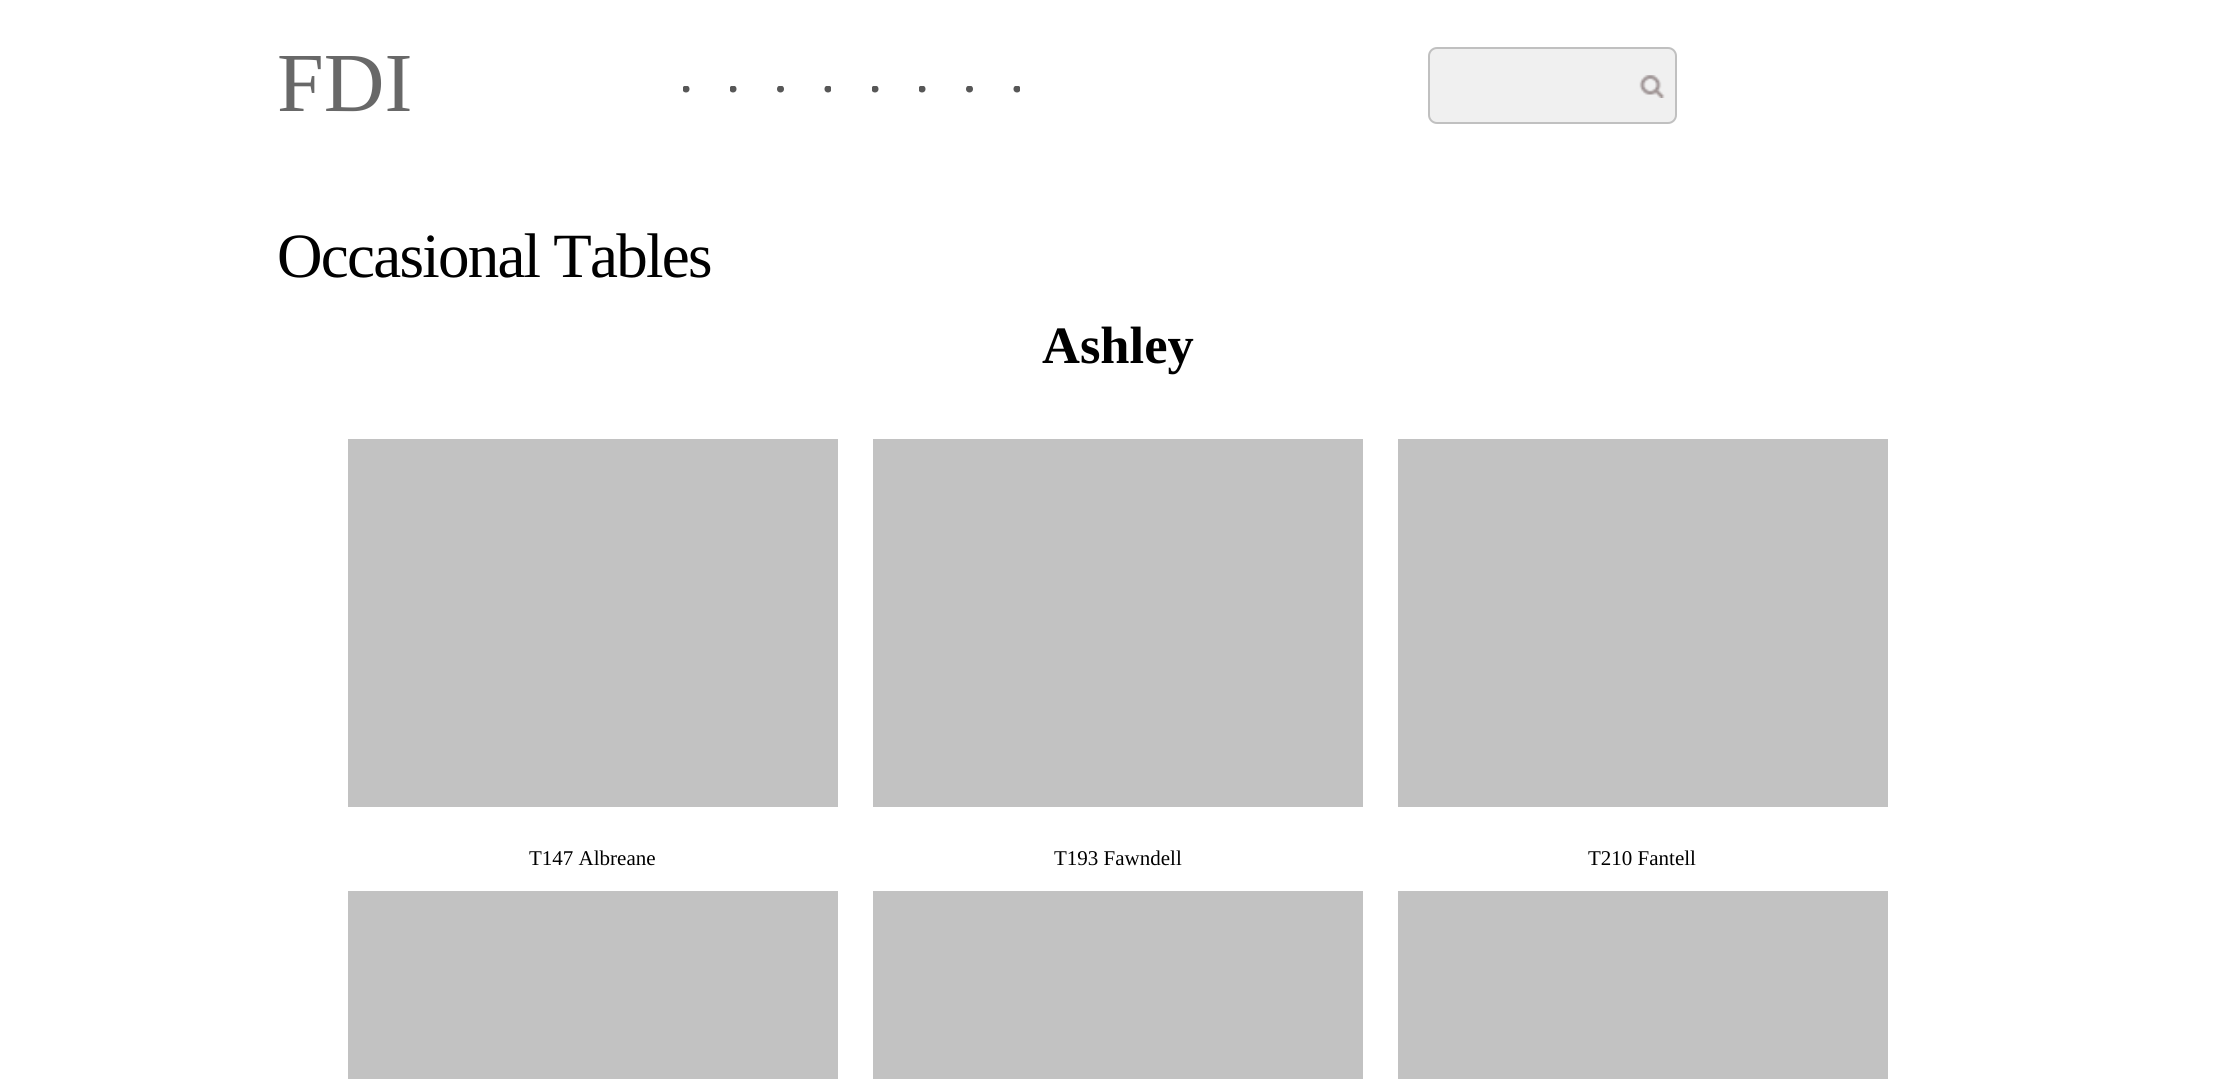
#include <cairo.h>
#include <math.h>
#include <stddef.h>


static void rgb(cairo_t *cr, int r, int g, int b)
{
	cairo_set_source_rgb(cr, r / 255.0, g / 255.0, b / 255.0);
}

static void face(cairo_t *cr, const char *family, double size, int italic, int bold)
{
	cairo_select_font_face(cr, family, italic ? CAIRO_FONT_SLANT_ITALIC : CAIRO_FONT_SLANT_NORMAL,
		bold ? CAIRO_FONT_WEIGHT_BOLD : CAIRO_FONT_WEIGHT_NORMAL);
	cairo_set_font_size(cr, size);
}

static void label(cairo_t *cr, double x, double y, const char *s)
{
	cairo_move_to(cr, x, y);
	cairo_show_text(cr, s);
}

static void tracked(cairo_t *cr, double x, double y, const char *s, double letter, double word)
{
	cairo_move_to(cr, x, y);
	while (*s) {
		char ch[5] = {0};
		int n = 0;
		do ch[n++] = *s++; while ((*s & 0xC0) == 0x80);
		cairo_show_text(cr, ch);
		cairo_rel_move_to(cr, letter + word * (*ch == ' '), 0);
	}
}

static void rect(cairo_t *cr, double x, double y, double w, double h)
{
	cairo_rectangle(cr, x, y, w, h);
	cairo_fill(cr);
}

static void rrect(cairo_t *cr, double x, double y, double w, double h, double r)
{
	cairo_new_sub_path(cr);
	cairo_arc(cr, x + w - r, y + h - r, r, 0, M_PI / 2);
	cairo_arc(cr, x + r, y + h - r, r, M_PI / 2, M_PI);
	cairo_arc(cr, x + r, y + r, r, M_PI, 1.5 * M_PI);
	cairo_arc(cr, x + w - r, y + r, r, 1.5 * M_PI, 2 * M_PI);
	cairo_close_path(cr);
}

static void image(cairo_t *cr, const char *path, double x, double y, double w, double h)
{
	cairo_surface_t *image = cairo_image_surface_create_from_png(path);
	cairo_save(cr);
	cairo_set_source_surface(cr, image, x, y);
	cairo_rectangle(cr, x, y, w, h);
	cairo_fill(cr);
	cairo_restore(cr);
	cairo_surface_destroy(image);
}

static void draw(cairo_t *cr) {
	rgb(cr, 255, 255, 255);
	cairo_paint(cr);
	face(cr, "Liberation Serif", 84, 0, 0);
	rgb(cr, 104, 104, 104);
	label(cr, 277, 111, "FDI");
	cairo_save(cr);
	cairo_rectangle(cr, 683, 86, 7, 7);
	cairo_clip(cr);
	rgb(cr, 87, 87, 87);
	cairo_arc(cr, 686, 89, 3.5, 0, 2 * M_PI);
	cairo_fill(cr);
	cairo_restore(cr);
	cairo_save(cr);
	cairo_rectangle(cr, 730, 86, 7, 7);
	cairo_clip(cr);
	rgb(cr, 87, 87, 87);
	cairo_arc(cr, 733, 89, 3.5, 0, 2 * M_PI);
	cairo_fill(cr);
	cairo_restore(cr);
	cairo_save(cr);
	cairo_rectangle(cr, 777, 86, 7, 7);
	cairo_clip(cr);
	rgb(cr, 87, 87, 87);
	cairo_arc(cr, 780.5, 89, 3.5, 0, 2 * M_PI);
	cairo_fill(cr);
	cairo_restore(cr);
	cairo_save(cr);
	cairo_rectangle(cr, 824, 86, 7, 7);
	cairo_clip(cr);
	rgb(cr, 87, 87, 87);
	cairo_arc(cr, 828, 89, 3.5, 0, 2 * M_PI);
	cairo_fill(cr);
	cairo_restore(cr);
	cairo_save(cr);
	cairo_rectangle(cr, 872, 86, 7, 7);
	cairo_clip(cr);
	rgb(cr, 87, 87, 87);
	cairo_arc(cr, 875, 89, 3.5, 0, 2 * M_PI);
	cairo_fill(cr);
	cairo_restore(cr);
	cairo_save(cr);
	cairo_rectangle(cr, 919, 86, 7, 7);
	cairo_clip(cr);
	rgb(cr, 87, 87, 87);
	cairo_arc(cr, 922, 89, 3.5, 0, 2 * M_PI);
	cairo_fill(cr);
	cairo_restore(cr);
	cairo_save(cr);
	cairo_rectangle(cr, 966, 86, 7, 7);
	cairo_clip(cr);
	rgb(cr, 87, 87, 87);
	cairo_arc(cr, 969.5, 89, 3.5, 0, 2 * M_PI);
	cairo_fill(cr);
	cairo_restore(cr);
	cairo_save(cr);
	cairo_rectangle(cr, 1013, 86, 7, 7);
	cairo_clip(cr);
	rgb(cr, 87, 87, 87);
	cairo_arc(cr, 1017, 89, 3.5, 0, 2 * M_PI);
	cairo_fill(cr);
	cairo_restore(cr);
	rgb(cr, 240, 240, 240);
	rrect(cr, 1428, 47, 249, 77, 9);
	cairo_fill(cr);
	image(cr, "image0.png", 1639, 75, 26, 23);
	rrect(cr, 1429, 48, 247, 75, 8);
	cairo_set_source_rgba(cr, 0, 0, 0, 0.2);
	cairo_stroke(cr);
	face(cr, "Liberation Serif", 63, 0, 0);
	rgb(cr, 0, 0, 0);
	tracked(cr, 277, 277, "Occasional Tables", -1.75, 0);
	face(cr, "Liberation Serif", 52.5, 0, 1);
	label(cr, 1042, 363, "Ashley");
	rgb(cr, 194, 194, 194);
	rect(cr, 348, 439, 490, 368);
	face(cr, "Liberation Serif", 21, 0, 0);
	rgb(cr, 0, 0, 0);
	label(cr, 529, 865, "T147 Albreane");
	rgb(cr, 194, 194, 194);
	rect(cr, 873, 439, 490, 368);
	rgb(cr, 0, 0, 0);
	label(cr, 1054, 865, "T193 Fawndell");
	rgb(cr, 194, 194, 194);
	rect(cr, 1398, 439, 490, 368);
	rgb(cr, 0, 0, 0);
	label(cr, 1588, 865, "T210 Fantell");
	rgb(cr, 194, 194, 194);
	rect(cr, 348, 891, 490, 188);
	rect(cr, 873, 891, 490, 188);
	rect(cr, 1398, 891, 490, 188);
}

int main(void) {
	cairo_surface_t *surface = cairo_image_surface_create(CAIRO_FORMAT_RGB24, 2234, 1079);
	cairo_t *cr = cairo_create(surface);
	cairo_font_options_t *options = cairo_font_options_create();
	cairo_font_options_set_hint_metrics(options, CAIRO_HINT_METRICS_OFF);
	cairo_font_options_set_hint_style(options, CAIRO_HINT_STYLE_NONE);
	cairo_set_font_options(cr, options);
	cairo_set_miter_limit(cr, 4);
	draw(cr);
	cairo_surface_write_to_png(surface, "render.png");
	cairo_font_options_destroy(options);
	cairo_destroy(cr);
	cairo_surface_destroy(surface);
	return 0;
}
